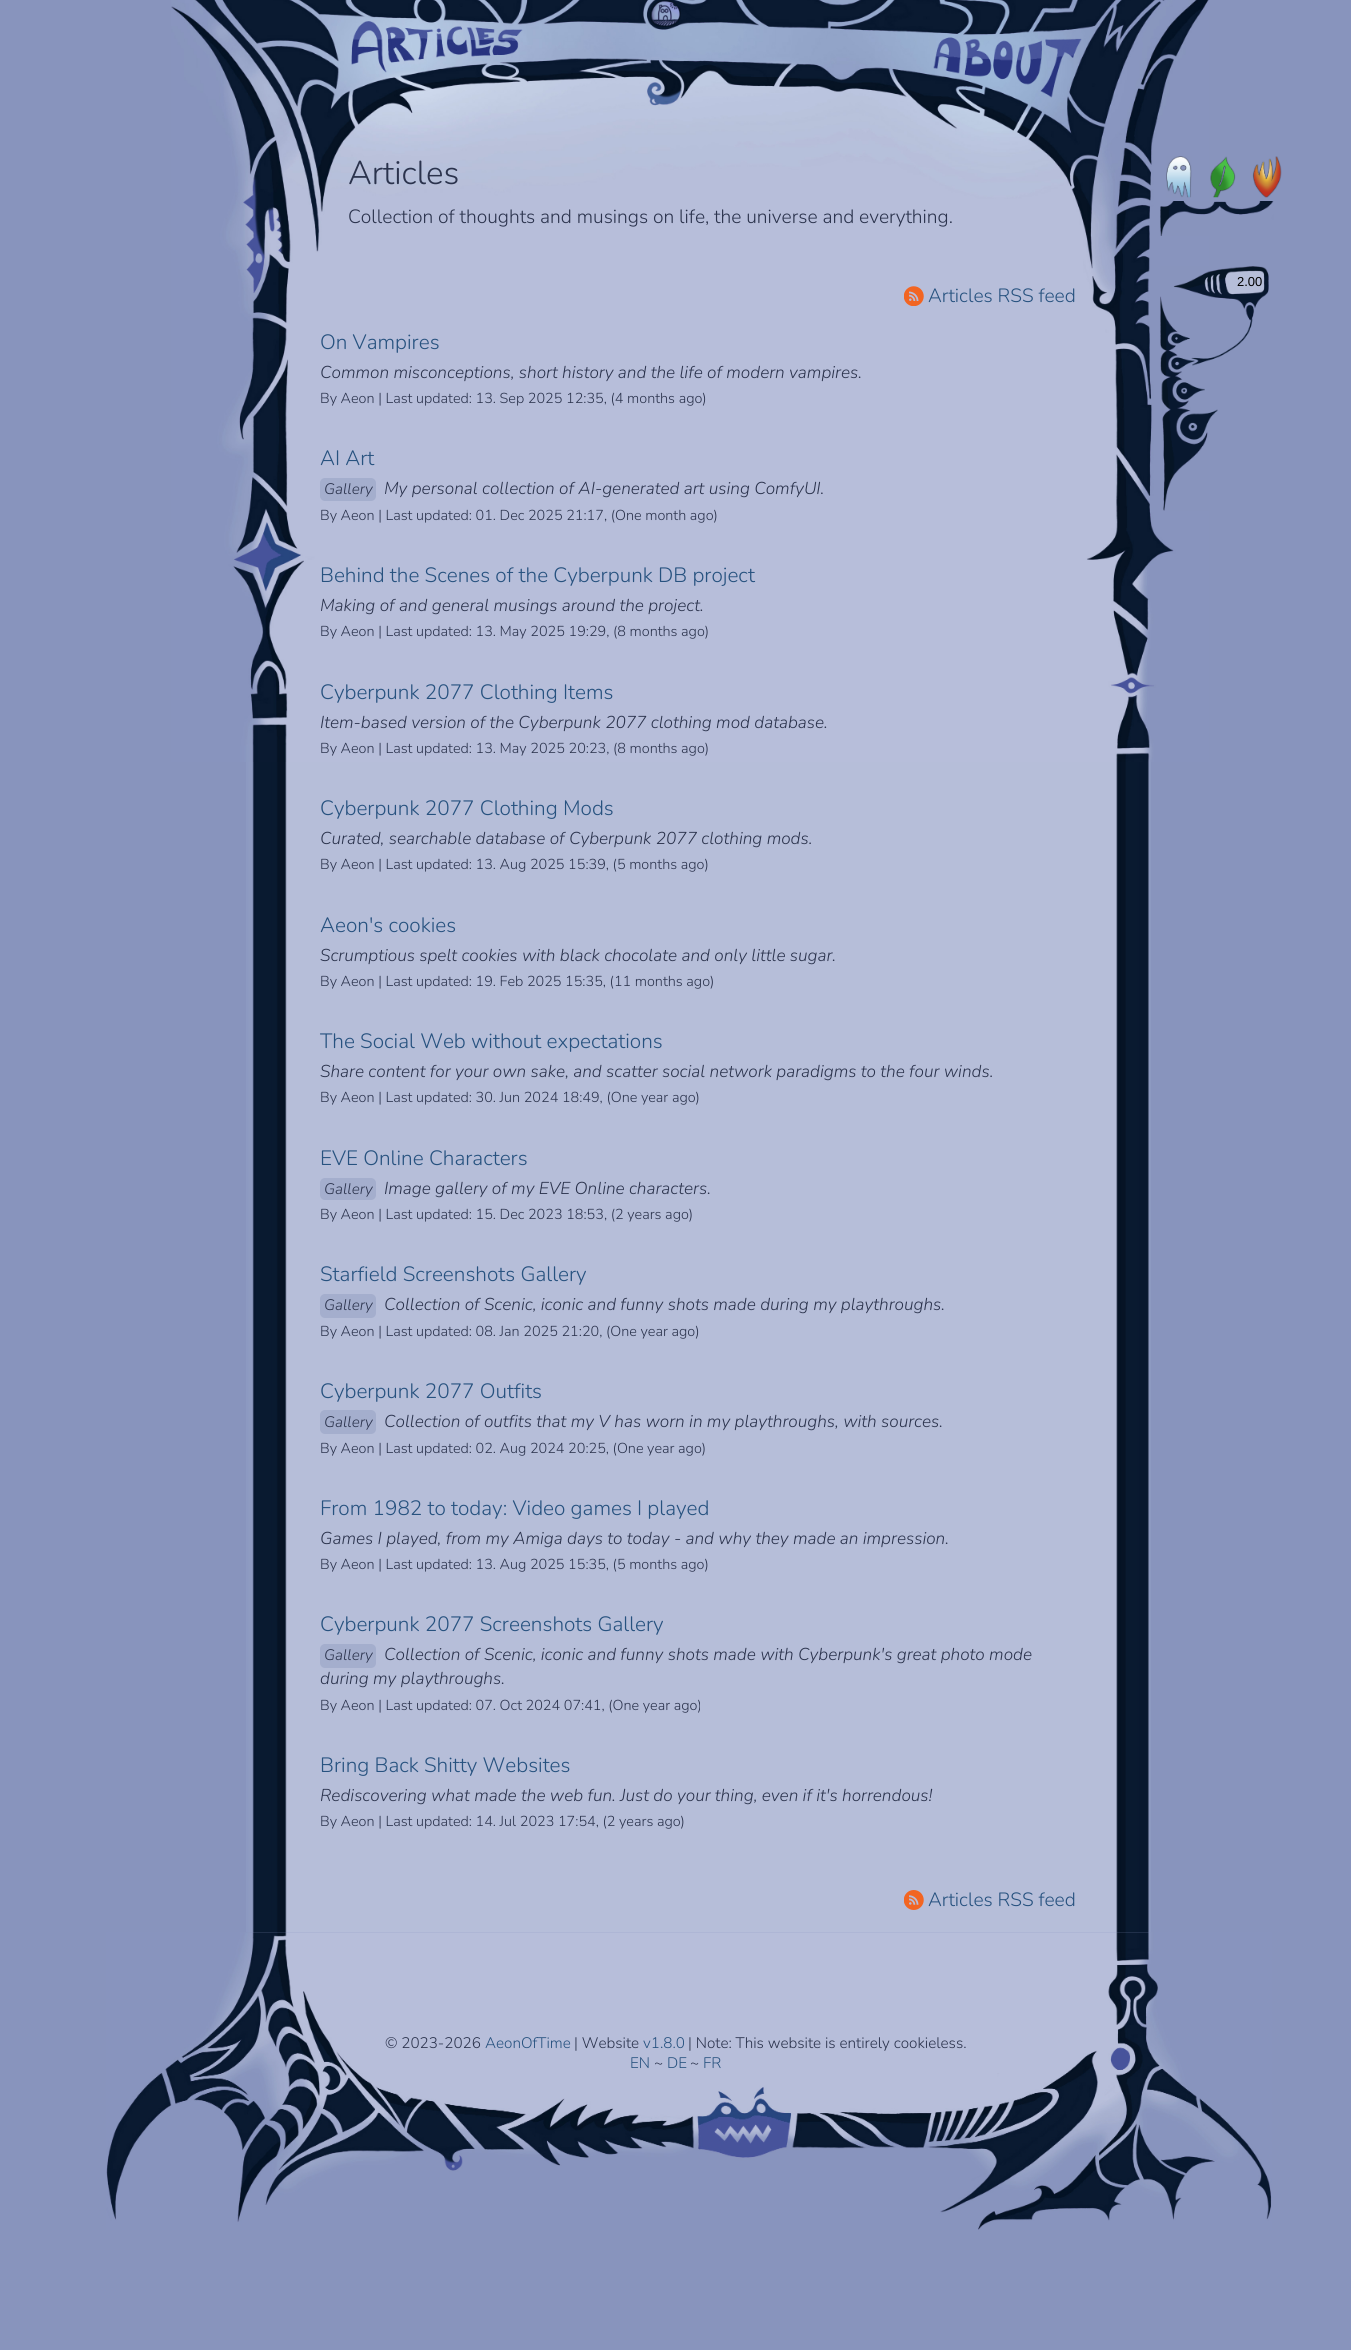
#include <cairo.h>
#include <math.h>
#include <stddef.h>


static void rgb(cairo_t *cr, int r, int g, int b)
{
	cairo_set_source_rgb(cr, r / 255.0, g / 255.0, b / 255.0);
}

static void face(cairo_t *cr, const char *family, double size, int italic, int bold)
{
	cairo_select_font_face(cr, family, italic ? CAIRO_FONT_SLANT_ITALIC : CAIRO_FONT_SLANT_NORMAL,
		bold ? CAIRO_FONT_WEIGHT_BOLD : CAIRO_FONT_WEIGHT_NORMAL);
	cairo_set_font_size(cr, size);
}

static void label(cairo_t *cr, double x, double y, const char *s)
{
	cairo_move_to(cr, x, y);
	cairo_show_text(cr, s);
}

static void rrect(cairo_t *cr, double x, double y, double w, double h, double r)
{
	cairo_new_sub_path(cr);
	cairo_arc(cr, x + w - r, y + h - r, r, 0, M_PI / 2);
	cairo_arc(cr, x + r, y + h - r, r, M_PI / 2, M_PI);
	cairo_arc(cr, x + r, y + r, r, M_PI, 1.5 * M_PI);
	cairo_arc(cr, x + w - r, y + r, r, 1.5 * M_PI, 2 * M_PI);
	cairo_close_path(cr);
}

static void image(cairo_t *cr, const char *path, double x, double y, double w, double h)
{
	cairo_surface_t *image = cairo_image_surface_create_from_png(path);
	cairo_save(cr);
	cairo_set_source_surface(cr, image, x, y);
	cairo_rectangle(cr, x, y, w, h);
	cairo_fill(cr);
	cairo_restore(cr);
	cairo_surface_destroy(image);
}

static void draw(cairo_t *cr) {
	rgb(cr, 136, 148, 189);
	cairo_paint(cr);
	image(cr, "image0.png", 246, 762, 905, 1171);
	image(cr, "image1.png", 171, 0, 1038, 762);
	image(cr, "image2.png", 650, 0, 31, 27);
	image(cr, "image3.png", 351, 21, 172, 52);
	image(cr, "image4.png", 933, 37, 149, 61);
	face(cr, "Nunito ExtraLight", 33, 0, 0);
	rgb(cr, 43, 51, 77);
	label(cr, 348, 184, "Articles");
	face(cr, "Nunito ExtraLight", 19.2, 0, 0);
	label(cr, 348, 223, "Collection of thoughts and musings on life, the universe and everything.");
	image(cr, "image5.png", 1160, 201, 114, 35);
	image(cr, "image6.png", 1166, 156, 26, 42);
	image(cr, "image7.png", 1210, 156, 26, 42);
	image(cr, "image8.png", 1252, 156, 30, 42);
	image(cr, "image9.png", 1160, 266, 109, 245);
	face(cr, "Liberation Sans", 13, 0, 0);
	rgb(cr, 0, 0, 0);
	label(cr, 1237, 286, "2.00");
	image(cr, "image10.png", 1191, 317, 62, 49);
	image(cr, "image11.png", 1171, 333, 19, 11);
	image(cr, "image12.png", 1171, 357, 24, 13);
	image(cr, "image13.png", 1176, 382, 29, 18);
	image(cr, "image14.png", 1180, 409, 38, 31);
	image(cr, "image15.png", 904, 286, 20, 20);
	face(cr, "Nunito ExtraLight", 19.2, 0, 0);
	rgb(cr, 39, 82, 127);
	label(cr, 928, 302, "Articles RSS feed");
	face(cr, "Nunito ExtraLight", 20.75, 0, 0);
	label(cr, 320, 349, "On Vampires");
	face(cr, "Nunito ExtraLight", 17.2, 1, 0);
	rgb(cr, 43, 51, 77);
	label(cr, 320, 378, "Common misconceptions, short history and the life of modern vampires.");
	face(cr, "Nunito ExtraLight", 14.4, 0, 0);
	label(cr, 320, 403, "By Aeon | Last updated: 13. Sep 2025 12:35, (4 months ago)");
	face(cr, "Nunito ExtraLight", 20.75, 0, 0);
	rgb(cr, 39, 82, 127);
	label(cr, 320, 465, "AI Art");
	rgb(cr, 164, 174, 205);
	rrect(cr, 320, 478, 56, 23, 5);
	cairo_fill(cr);
	face(cr, "Nunito ExtraLight", 15.25, 1, 0);
	rgb(cr, 43, 51, 77);
	label(cr, 324, 494, "Gallery");
	face(cr, "Nunito ExtraLight", 17.2, 1, 0);
	label(cr, 384, 494, "My personal collection of AI-generated art using ComfyUI.");
	face(cr, "Nunito ExtraLight", 14.4, 0, 0);
	label(cr, 320, 520, "By Aeon | Last updated: 01. Dec 2025 21:17, (One month ago)");
	face(cr, "Nunito ExtraLight", 20.75, 0, 0);
	rgb(cr, 39, 82, 127);
	label(cr, 320, 582, "Behind the Scenes of the Cyberpunk DB project");
	face(cr, "Nunito ExtraLight", 17.2, 1, 0);
	rgb(cr, 43, 51, 77);
	label(cr, 320, 611, "Making of and general musings around the project.");
	face(cr, "Nunito ExtraLight", 14.4, 0, 0);
	label(cr, 320, 636, "By Aeon | Last updated: 13. May 2025 19:29, (8 months ago)");
	face(cr, "Nunito ExtraLight", 20.75, 0, 0);
	rgb(cr, 39, 82, 127);
	label(cr, 320, 699, "Cyberpunk 2077 Clothing Items");
	face(cr, "Nunito ExtraLight", 17.2, 1, 0);
	rgb(cr, 43, 51, 77);
	label(cr, 320, 728, "Item-based version of the Cyberpunk 2077 clothing mod database.");
	face(cr, "Nunito ExtraLight", 14.4, 0, 0);
	label(cr, 320, 753, "By Aeon | Last updated: 13. May 2025 20:23, (8 months ago)");
	face(cr, "Nunito ExtraLight", 20.75, 0, 0);
	rgb(cr, 39, 82, 127);
	label(cr, 320, 815, "Cyberpunk 2077 Clothing Mods");
	face(cr, "Nunito ExtraLight", 17.2, 1, 0);
	rgb(cr, 43, 51, 77);
	label(cr, 320, 844, "Curated, searchable database of Cyberpunk 2077 clothing mods.");
	face(cr, "Nunito ExtraLight", 14.4, 0, 0);
	label(cr, 320, 869, "By Aeon | Last updated: 13. Aug 2025 15:39, (5 months ago)");
	face(cr, "Nunito ExtraLight", 20.75, 0, 0);
	rgb(cr, 39, 82, 127);
	label(cr, 320, 932, "Aeon's cookies");
	face(cr, "Nunito ExtraLight", 17.2, 1, 0);
	rgb(cr, 43, 51, 77);
	label(cr, 320, 961, "Scrumptious spelt cookies with black chocolate and only little sugar.");
	face(cr, "Nunito ExtraLight", 14.4, 0, 0);
	label(cr, 320, 986, "By Aeon | Last updated: 19. Feb 2025 15:35, (11 months ago)");
	face(cr, "Nunito ExtraLight", 20.75, 0, 0);
	rgb(cr, 39, 82, 127);
	label(cr, 320, 1048, "The Social Web without expectations");
	face(cr, "Nunito ExtraLight", 17.2, 1, 0);
	rgb(cr, 43, 51, 77);
	label(cr, 320, 1077, "Share content for your own sake, and scatter social network paradigms to the four winds.");
	face(cr, "Nunito ExtraLight", 14.4, 0, 0);
	label(cr, 320, 1102, "By Aeon | Last updated: 30. Jun 2024 18:49, (One year ago)");
	face(cr, "Nunito ExtraLight", 20.75, 0, 0);
	rgb(cr, 39, 82, 127);
	label(cr, 320, 1165, "EVE Online Characters");
	rgb(cr, 164, 174, 205);
	rrect(cr, 320, 1178, 56, 22, 5);
	cairo_fill(cr);
	face(cr, "Nunito ExtraLight", 15.25, 1, 0);
	rgb(cr, 43, 51, 77);
	label(cr, 324, 1194, "Gallery");
	face(cr, "Nunito ExtraLight", 17.2, 1, 0);
	label(cr, 384, 1194, "Image gallery of my EVE Online characters.");
	face(cr, "Nunito ExtraLight", 14.4, 0, 0);
	label(cr, 320, 1219, "By Aeon | Last updated: 15. Dec 2023 18:53, (2 years ago)");
	face(cr, "Nunito ExtraLight", 20.75, 0, 0);
	rgb(cr, 39, 82, 127);
	label(cr, 320, 1281, "Starfield Screenshots Gallery");
	rgb(cr, 164, 174, 205);
	rrect(cr, 320, 1294, 56, 24, 5);
	cairo_fill(cr);
	face(cr, "Nunito ExtraLight", 15.25, 1, 0);
	rgb(cr, 43, 51, 77);
	label(cr, 324, 1310, "Gallery");
	face(cr, "Nunito ExtraLight", 17.2, 1, 0);
	label(cr, 384, 1310, "Collection of Scenic, iconic and funny shots made during my playthroughs.");
	face(cr, "Nunito ExtraLight", 14.4, 0, 0);
	label(cr, 320, 1336, "By Aeon | Last updated: 08. Jan 2025 21:20, (One year ago)");
	face(cr, "Nunito ExtraLight", 20.75, 0, 0);
	rgb(cr, 39, 82, 127);
	label(cr, 320, 1398, "Cyberpunk 2077 Outfits");
	rgb(cr, 164, 174, 205);
	rrect(cr, 320, 1410, 56, 24, 5);
	cairo_fill(cr);
	face(cr, "Nunito ExtraLight", 15.25, 1, 0);
	rgb(cr, 43, 51, 77);
	label(cr, 324, 1427, "Gallery");
	face(cr, "Nunito ExtraLight", 17.2, 1, 0);
	label(cr, 384, 1427, "Collection of outfits that my V has worn in my playthroughs, with sources.");
	face(cr, "Nunito ExtraLight", 14.4, 0, 0);
	label(cr, 320, 1453, "By Aeon | Last updated: 02. Aug 2024 20:25, (One year ago)");
	face(cr, "Nunito ExtraLight", 20.75, 0, 0);
	rgb(cr, 39, 82, 127);
	label(cr, 320, 1515, "From 1982 to today: Video games I played");
	face(cr, "Nunito ExtraLight", 17.2, 1, 0);
	rgb(cr, 43, 51, 77);
	label(cr, 320, 1544, "Games I played, from my Amiga days to today - and why they made an impression.");
	face(cr, "Nunito ExtraLight", 14.4, 0, 0);
	label(cr, 320, 1569, "By Aeon | Last updated: 13. Aug 2025 15:35, (5 months ago)");
	face(cr, "Nunito ExtraLight", 20.75, 0, 0);
	rgb(cr, 39, 82, 127);
	label(cr, 320, 1631, "Cyberpunk 2077 Screenshots Gallery");
	rgb(cr, 164, 174, 205);
	rrect(cr, 320, 1644, 56, 24, 5);
	cairo_fill(cr);
	face(cr, "Nunito ExtraLight", 15.25, 1, 0);
	rgb(cr, 43, 51, 77);
	label(cr, 324, 1660, "Gallery");
	face(cr, "Nunito ExtraLight", 17.2, 1, 0);
	label(cr, 384, 1660, "Collection of Scenic, iconic and funny shots made with Cyberpunk's great photo mode");
	label(cr, 320, 1684, "during my playthroughs.");
	face(cr, "Nunito ExtraLight", 14.4, 0, 0);
	label(cr, 320, 1710, "By Aeon | Last updated: 07. Oct 2024 07:41, (One year ago)");
	face(cr, "Nunito ExtraLight", 20.75, 0, 0);
	rgb(cr, 39, 82, 127);
	label(cr, 320, 1772, "Bring Back Shitty Websites");
	face(cr, "Nunito ExtraLight", 17.2, 1, 0);
	rgb(cr, 43, 51, 77);
	label(cr, 320, 1801, "Rediscovering what made the web fun. Just do your thing, even if it's horrendous!");
	face(cr, "Nunito ExtraLight", 14.4, 0, 0);
	label(cr, 320, 1826, "By Aeon | Last updated: 14. Jul 2023 17:54, (2 years ago)");
	image(cr, "image16.png", 904, 1890, 20, 20);
	face(cr, "Nunito ExtraLight", 19.2, 0, 0);
	rgb(cr, 39, 82, 127);
	label(cr, 928, 1906, "Articles RSS feed");
	image(cr, "image17.png", 106, 1932, 1166, 298);
	face(cr, "Nunito ExtraLight", 15.25, 0, 0);
	rgb(cr, 43, 51, 77);
	label(cr, 385, 2048, "© 2023-2026");
	rgb(cr, 39, 82, 127);
	label(cr, 485, 2048, "AeonOfTime");
	rgb(cr, 43, 51, 77);
	label(cr, 574, 2048, "| Website");
	rgb(cr, 39, 82, 127);
	label(cr, 643, 2048, "v1.8.0");
	rgb(cr, 43, 51, 77);
	label(cr, 688, 2048, "| Note: This website is entirely cookieless.");
	rgb(cr, 39, 82, 127);
	label(cr, 630, 2068, "EN");
	rgb(cr, 43, 51, 77);
	label(cr, 654, 2068, "~");
	rgb(cr, 39, 82, 127);
	label(cr, 667, 2068, "DE");
	rgb(cr, 43, 51, 77);
	label(cr, 690, 2068, "~");
	rgb(cr, 39, 82, 127);
	label(cr, 703, 2068, "FR");
}

int main(void) {
	cairo_surface_t *surface = cairo_image_surface_create(CAIRO_FORMAT_RGB24, 1351, 2350);
	cairo_t *cr = cairo_create(surface);
	cairo_font_options_t *options = cairo_font_options_create();
	cairo_font_options_set_hint_metrics(options, CAIRO_HINT_METRICS_OFF);
	cairo_font_options_set_hint_style(options, CAIRO_HINT_STYLE_NONE);
	cairo_set_font_options(cr, options);
	cairo_set_miter_limit(cr, 4);
	draw(cr);
	cairo_surface_write_to_png(surface, "render.png");
	cairo_font_options_destroy(options);
	cairo_destroy(cr);
	cairo_surface_destroy(surface);
	return 0;
}
